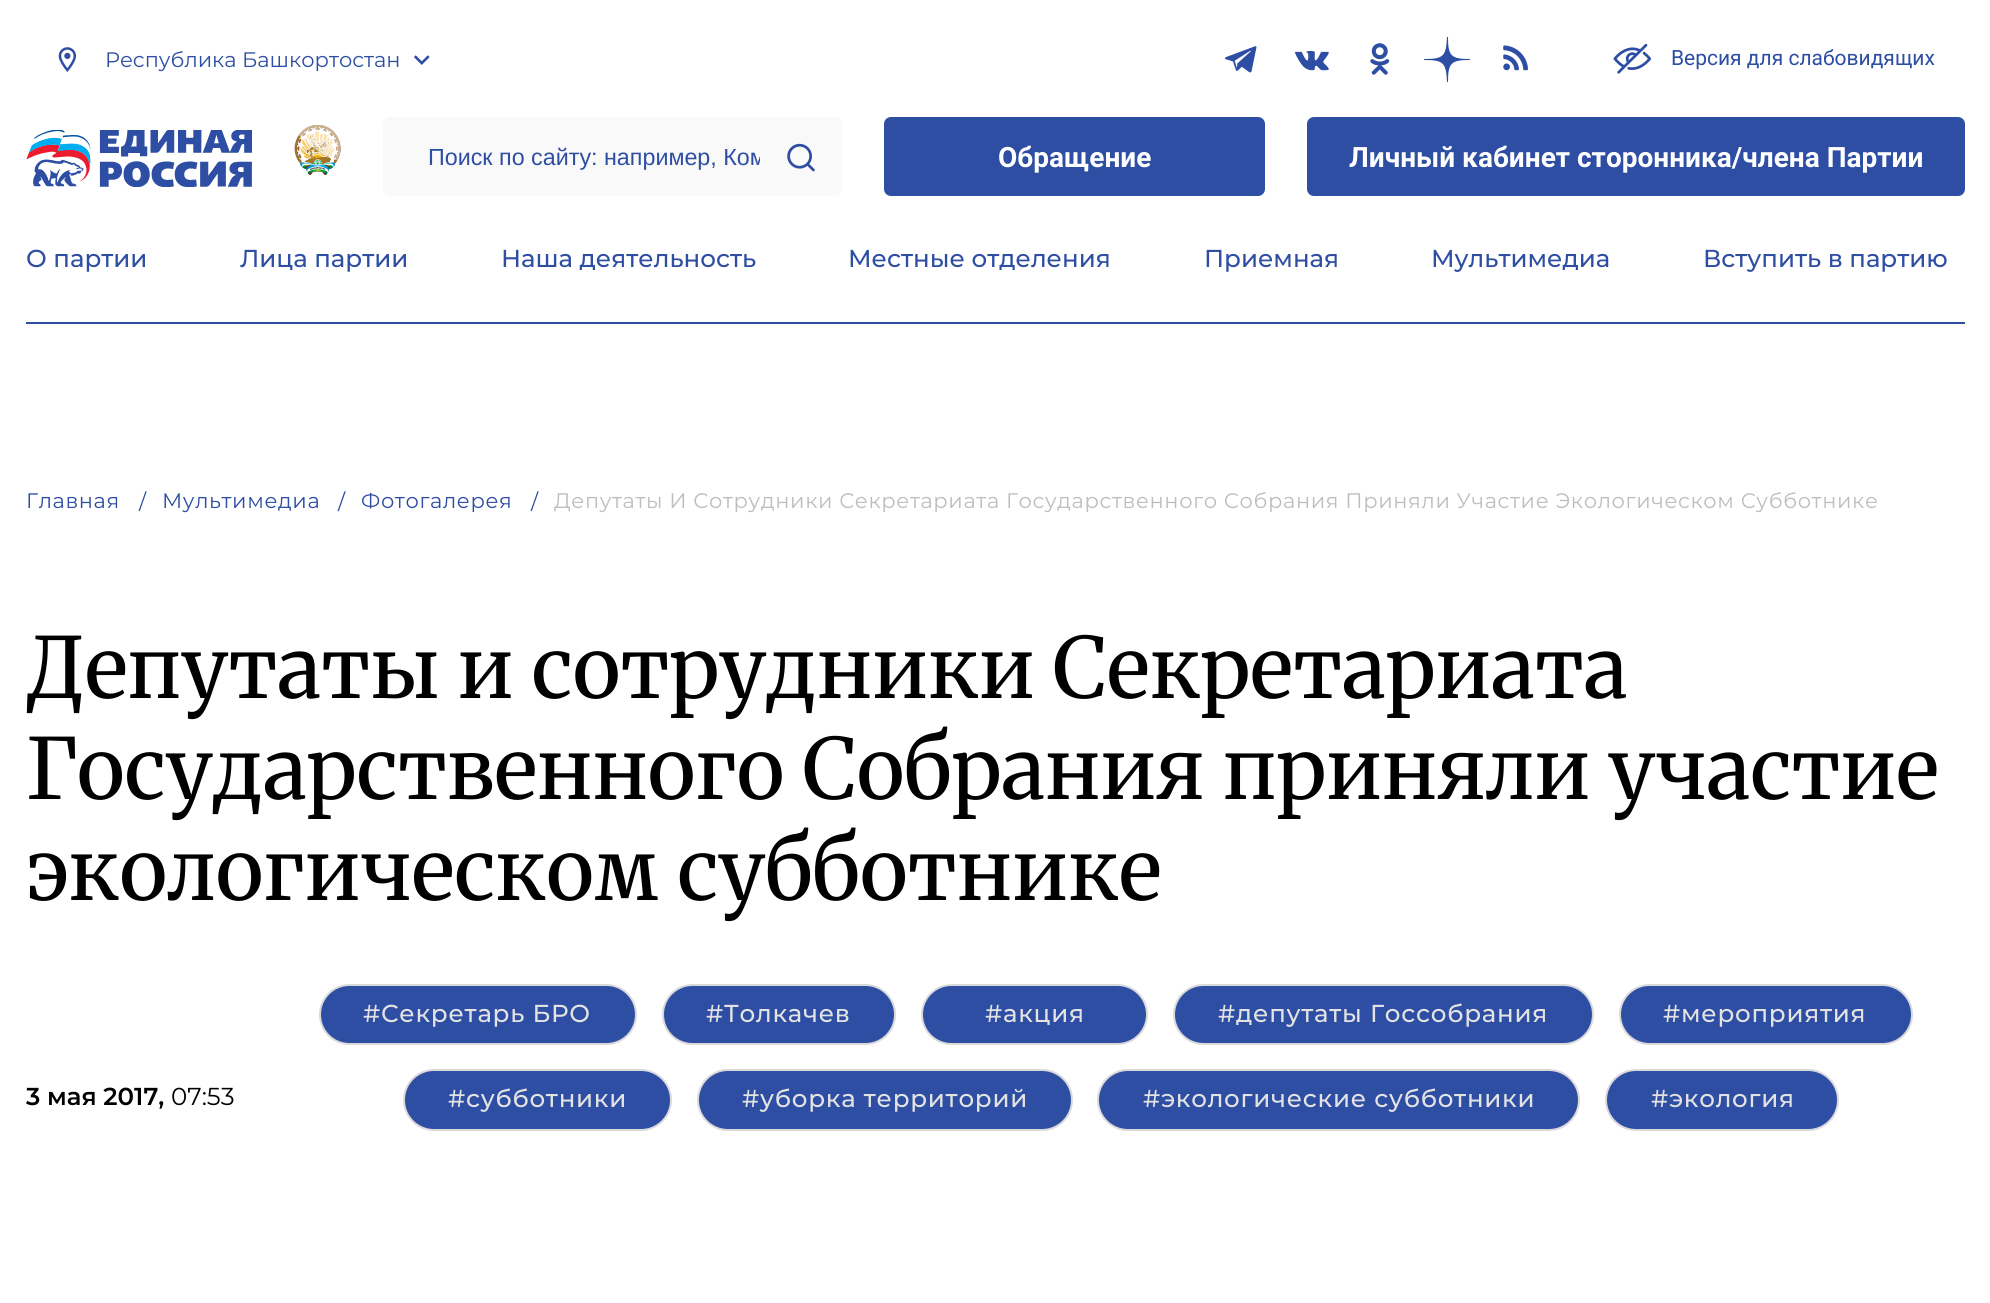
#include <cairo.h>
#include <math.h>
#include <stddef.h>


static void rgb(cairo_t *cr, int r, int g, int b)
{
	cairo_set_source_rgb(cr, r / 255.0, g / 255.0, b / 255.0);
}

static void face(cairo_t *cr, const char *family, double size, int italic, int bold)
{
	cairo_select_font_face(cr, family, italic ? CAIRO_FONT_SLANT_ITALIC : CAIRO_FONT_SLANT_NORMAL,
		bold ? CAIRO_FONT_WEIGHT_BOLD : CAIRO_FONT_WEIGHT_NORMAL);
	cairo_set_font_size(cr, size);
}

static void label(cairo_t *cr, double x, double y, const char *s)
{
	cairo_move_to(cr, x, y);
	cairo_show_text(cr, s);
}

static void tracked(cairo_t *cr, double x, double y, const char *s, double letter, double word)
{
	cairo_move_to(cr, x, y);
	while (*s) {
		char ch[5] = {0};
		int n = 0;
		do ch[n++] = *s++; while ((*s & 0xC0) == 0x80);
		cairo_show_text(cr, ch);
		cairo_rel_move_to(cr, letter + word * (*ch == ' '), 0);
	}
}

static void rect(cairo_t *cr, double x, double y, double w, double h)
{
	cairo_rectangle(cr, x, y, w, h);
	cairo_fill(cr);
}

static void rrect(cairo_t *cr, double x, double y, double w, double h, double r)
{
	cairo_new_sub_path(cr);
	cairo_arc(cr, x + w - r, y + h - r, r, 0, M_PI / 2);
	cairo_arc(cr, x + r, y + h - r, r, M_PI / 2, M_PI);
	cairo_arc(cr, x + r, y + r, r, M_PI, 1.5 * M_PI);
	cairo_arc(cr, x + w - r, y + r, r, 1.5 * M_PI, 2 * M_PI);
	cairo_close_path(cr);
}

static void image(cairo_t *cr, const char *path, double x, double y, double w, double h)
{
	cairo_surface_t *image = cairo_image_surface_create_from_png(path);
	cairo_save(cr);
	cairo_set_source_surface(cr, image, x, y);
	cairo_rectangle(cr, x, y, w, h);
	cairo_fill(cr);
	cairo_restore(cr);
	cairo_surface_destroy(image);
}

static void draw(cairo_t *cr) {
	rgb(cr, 255, 255, 255);
	cairo_paint(cr);
	image(cr, "image0.png", 58, 47, 19, 25);
	face(cr, "Montserrat", 21, 0, 0);
	rgb(cr, 46, 78, 164);
	label(cr, 105, 67, "Республика Башкортостан");
	image(cr, "image1.png", 414, 55, 16, 10);
	image(cr, "image2.png", 1225, 46, 32, 27);
	image(cr, "image3.png", 1295, 51, 34, 20);
	image(cr, "image4.png", 1370, 43, 20, 32);
	cairo_new_path(cr);
	cairo_move_to(cr, 1470, 60);
	cairo_line_to(cr, 1470, 59);
	cairo_curve_to(cr, 1451, 59, 1448, 56, 1448, 37);
	cairo_line_to(cr, 1447, 37);
	cairo_curve_to(cr, 1446, 56, 1444, 59, 1424, 59);
	cairo_line_to(cr, 1424, 60);
	cairo_curve_to(cr, 1444, 60, 1446, 63, 1447, 82);
	cairo_line_to(cr, 1448, 82);
	cairo_curve_to(cr, 1448, 63, 1451, 60, 1470, 60);
	cairo_fill(cr);
	image(cr, "image5.png", 1503, 45, 25, 26);
	image(cr, "image6.png", 1613, 43, 39, 31);
	face(cr, "Roboto", 21, 0, 0);
	label(cr, 1671, 65, "Версия для слабовидящих");
	image(cr, "image7.png", 26, 130, 226, 57);
	image(cr, "image8.png", 294, 125, 47, 50);
	rgb(cr, 249, 249, 249);
	rrect(cr, 383, 117, 459, 79, 7);
	cairo_fill(cr);
	cairo_save(cr);
	cairo_rectangle(cr, 427, 144, 333, 26);
	cairo_clip(cr);
	face(cr, "Liberation Sans", 23.3, 0, 0);
	rgb(cr, 46, 78, 164);
	label(cr, 428, 165, "Поиск по сайту: например, Ком");
	cairo_restore(cr);
	image(cr, "image9.png", 787, 143, 28, 29);
	rgb(cr, 46, 78, 164);
	rrect(cr, 884, 117, 381, 79, 7);
	cairo_fill(cr);
	face(cr, "Roboto", 28, 0, 1);
	rgb(cr, 255, 255, 255);
	label(cr, 998, 167, "Обращение");
	rgb(cr, 46, 78, 164);
	rrect(cr, 1307, 117, 658, 79, 7);
	cairo_fill(cr);
	rgb(cr, 255, 255, 255);
	label(cr, 1349, 167, "Личный кабинет сторонника/члена Партии");
	rgb(cr, 46, 78, 164);
	rect(cr, 26, 322, 1939, 2);
	face(cr, "Montserrat Medium", 24.5, 0, 0);
	label(cr, 26, 267, "О партии");
	label(cr, 240, 267, "Лица партии");
	label(cr, 501, 267, "Наша деятельность");
	label(cr, 848, 267, "Местные отделения");
	label(cr, 1204, 267, "Приемная");
	label(cr, 1431, 267, "Мультимедиа");
	label(cr, 1703, 267, "Вступить в партию");
	face(cr, "Montserrat", 21, 0, 0);
	tracked(cr, 26, 508, "Главная", 0.63, 0);
	tracked(cr, 139, 509, "/", 0.63, 0);
	tracked(cr, 162, 508, "Мультимедиа", 0.63, 0);
	tracked(cr, 338, 509, "/", 0.63, 0);
	tracked(cr, 361, 508, "Фотогалерея", 0.63, 0);
	tracked(cr, 531, 509, "/", 0.63, 0);
	rgb(cr, 189, 189, 189);
	tracked(cr, 554, 508, "Депутаты И Сотрудники Секретариата Государственного Собрания Приняли Участие Экологическом Субботнике", 0.63, 0);
	face(cr, "Merriweather", 84, 0, 0);
	rgb(cr, 0, 0, 0);
	label(cr, 26, 698, "Депутаты и сотрудники Секретариата");
	label(cr, 26, 799, "Государственного Собрания приняли участие");
	label(cr, 26, 900, "экологическом субботнике");
	face(cr, "Montserrat SemiBold", 24.5, 0, 0);
	label(cr, 26, 1105, "3 мая 2017,");
	face(cr, "Montserrat", 24.5, 0, 0);
	label(cr, 171, 1105, "07:53");
	rgb(cr, 46, 78, 164);
	rrect(cr, 320, 985, 316, 59, 29.5);
	cairo_fill_preserve(cr);
	rgb(cr, 218, 218, 218);
	cairo_stroke(cr);
	face(cr, "Montserrat Medium", 24.5, 0, 0);
	rgb(cr, 227, 227, 227);
	tracked(cr, 363, 1022, "#Секретарь БРО", 0.75, 0);
	rgb(cr, 46, 78, 164);
	rrect(cr, 663, 985, 232, 59, 29.5);
	cairo_fill_preserve(cr);
	rgb(cr, 218, 218, 218);
	cairo_stroke(cr);
	rgb(cr, 227, 227, 227);
	tracked(cr, 706, 1022, "#Толкачев", 0.75, 0);
	rgb(cr, 46, 78, 164);
	rrect(cr, 922, 985, 225, 59, 29.5);
	cairo_fill_preserve(cr);
	rgb(cr, 218, 218, 218);
	cairo_stroke(cr);
	rgb(cr, 227, 227, 227);
	tracked(cr, 985, 1022, "#акция", 0.75, 0);
	rgb(cr, 46, 78, 164);
	rrect(cr, 1174, 985, 419, 59, 29.5);
	cairo_fill_preserve(cr);
	rgb(cr, 218, 218, 218);
	cairo_stroke(cr);
	rgb(cr, 227, 227, 227);
	tracked(cr, 1218, 1022, "#депутаты Госсобрания", 0.75, 0);
	rgb(cr, 46, 78, 164);
	rrect(cr, 1620, 985, 292, 59, 29.5);
	cairo_fill_preserve(cr);
	rgb(cr, 218, 218, 218);
	cairo_stroke(cr);
	rgb(cr, 227, 227, 227);
	tracked(cr, 1663, 1022, "#мероприятия", 0.75, 0);
	rgb(cr, 46, 78, 164);
	rrect(cr, 404, 1070, 267, 60, 30);
	cairo_fill_preserve(cr);
	rgb(cr, 218, 218, 218);
	cairo_stroke(cr);
	rgb(cr, 227, 227, 227);
	tracked(cr, 448, 1107, "#субботники", 0.75, 0);
	rgb(cr, 46, 78, 164);
	rrect(cr, 698, 1070, 374, 60, 30);
	cairo_fill_preserve(cr);
	rgb(cr, 218, 218, 218);
	cairo_stroke(cr);
	rgb(cr, 227, 227, 227);
	tracked(cr, 742, 1107, "#уборка территорий", 0.75, 0);
	rgb(cr, 46, 78, 164);
	rrect(cr, 1098, 1070, 481, 60, 30);
	cairo_fill_preserve(cr);
	rgb(cr, 218, 218, 218);
	cairo_stroke(cr);
	rgb(cr, 227, 227, 227);
	tracked(cr, 1143, 1107, "#экологические субботники", 0.75, 0);
	rgb(cr, 46, 78, 164);
	rrect(cr, 1606, 1070, 232, 60, 30);
	cairo_fill_preserve(cr);
	rgb(cr, 218, 218, 218);
	cairo_stroke(cr);
	rgb(cr, 227, 227, 227);
	tracked(cr, 1651, 1107, "#экология", 0.75, 0);
}

int main(void) {
	cairo_surface_t *surface = cairo_image_surface_create(CAIRO_FORMAT_RGB24, 1990, 1303);
	cairo_t *cr = cairo_create(surface);
	cairo_font_options_t *options = cairo_font_options_create();
	cairo_font_options_set_hint_metrics(options, CAIRO_HINT_METRICS_OFF);
	cairo_font_options_set_hint_style(options, CAIRO_HINT_STYLE_NONE);
	cairo_set_font_options(cr, options);
	cairo_set_miter_limit(cr, 4);
	draw(cr);
	cairo_surface_write_to_png(surface, "render.png");
	cairo_font_options_destroy(options);
	cairo_destroy(cr);
	cairo_surface_destroy(surface);
	return 0;
}
